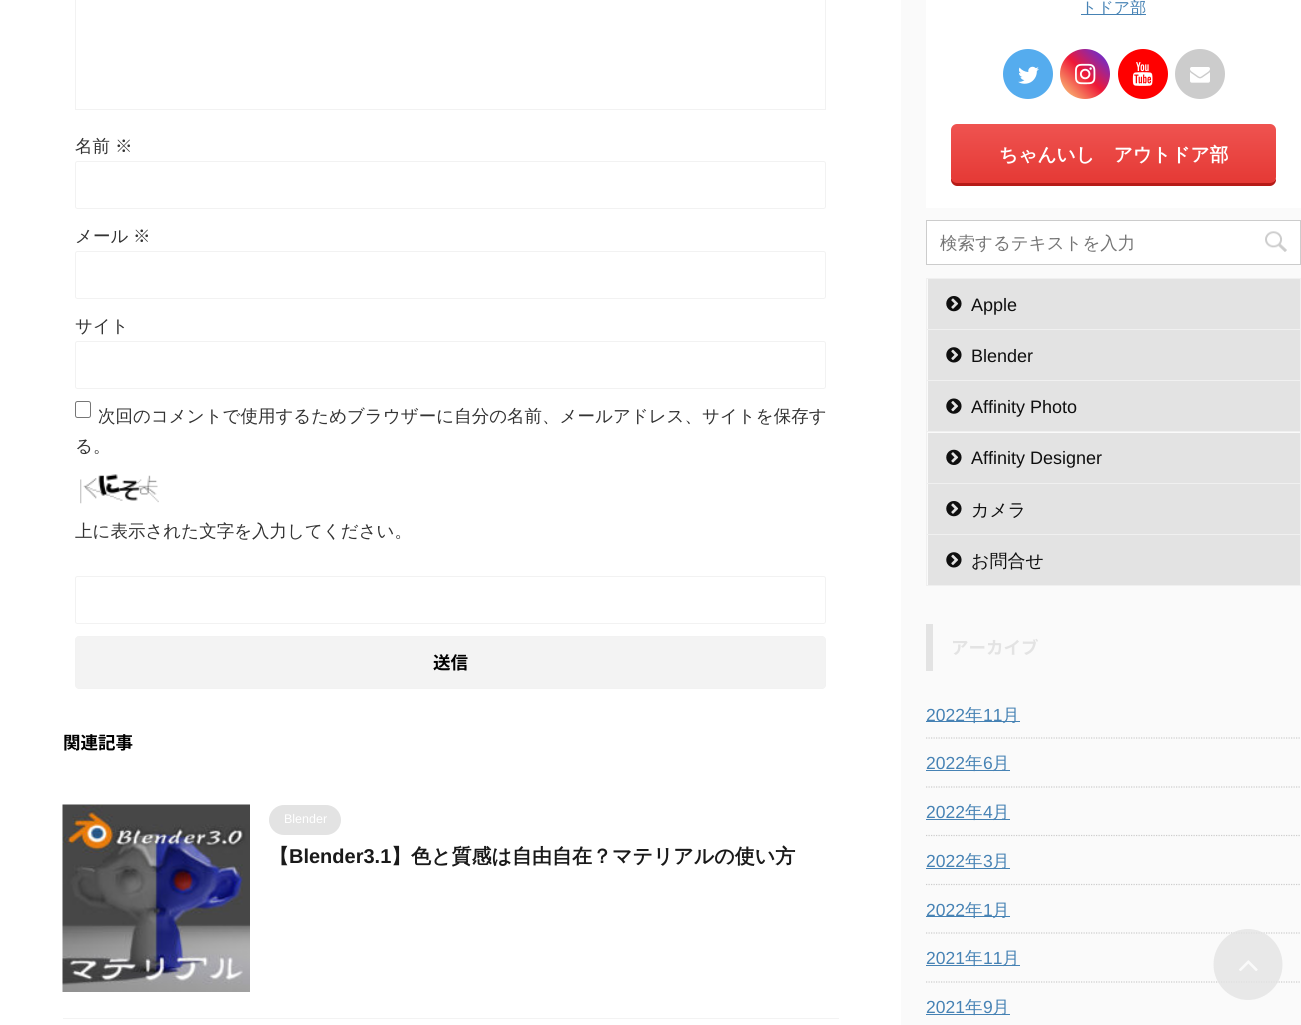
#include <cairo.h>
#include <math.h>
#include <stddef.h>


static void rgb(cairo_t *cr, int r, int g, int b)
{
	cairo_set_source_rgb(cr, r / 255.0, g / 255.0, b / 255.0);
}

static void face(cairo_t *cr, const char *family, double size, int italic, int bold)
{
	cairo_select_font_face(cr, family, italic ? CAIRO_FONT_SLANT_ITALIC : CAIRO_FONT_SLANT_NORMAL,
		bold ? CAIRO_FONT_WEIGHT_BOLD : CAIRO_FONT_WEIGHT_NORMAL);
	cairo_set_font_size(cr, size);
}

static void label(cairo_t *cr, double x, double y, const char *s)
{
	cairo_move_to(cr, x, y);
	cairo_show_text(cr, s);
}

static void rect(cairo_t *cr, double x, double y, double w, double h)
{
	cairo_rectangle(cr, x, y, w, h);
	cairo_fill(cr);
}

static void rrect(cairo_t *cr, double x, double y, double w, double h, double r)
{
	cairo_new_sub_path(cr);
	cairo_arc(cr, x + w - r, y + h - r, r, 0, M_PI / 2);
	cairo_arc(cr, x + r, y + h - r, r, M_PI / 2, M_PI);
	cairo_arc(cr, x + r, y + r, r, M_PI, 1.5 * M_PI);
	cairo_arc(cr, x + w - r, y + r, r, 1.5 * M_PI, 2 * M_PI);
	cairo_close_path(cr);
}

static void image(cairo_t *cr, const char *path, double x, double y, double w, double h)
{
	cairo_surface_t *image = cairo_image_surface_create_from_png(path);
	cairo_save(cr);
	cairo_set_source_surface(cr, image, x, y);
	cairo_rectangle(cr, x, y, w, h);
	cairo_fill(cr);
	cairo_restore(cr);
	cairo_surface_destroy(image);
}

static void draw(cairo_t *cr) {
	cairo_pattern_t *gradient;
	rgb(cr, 250, 250, 250);
	cairo_paint(cr);
	rgb(cr, 255, 255, 255);
	rect(cr, 0, 0, 901, 1025);
	cairo_rectangle(cr, 75.5, -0.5, 750, 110);
	rgb(cr, 242, 242, 242);
	cairo_set_line_width(cr, 1);
	cairo_stroke(cr);
	face(cr, "WenQuanYi Zen Hei Medium", 17.5, 0, 0);
	rgb(cr, 51, 51, 51);
	label(cr, 75, 152, "名前");
	label(cr, 115, 152, "※");
	rrect(cr, 75.5, 161.5, 750, 47, 2);
	rgb(cr, 242, 242, 242);
	cairo_stroke(cr);
	rgb(cr, 51, 51, 51);
	label(cr, 75, 242, "メール");
	label(cr, 133, 242, "※");
	rrect(cr, 75.5, 251.5, 750, 47, 2);
	rgb(cr, 242, 242, 242);
	cairo_stroke(cr);
	rgb(cr, 51, 51, 51);
	label(cr, 75, 332, "サイト");
	rrect(cr, 75.5, 341.5, 750, 47, 2);
	rgb(cr, 242, 242, 242);
	cairo_stroke(cr);
	rrect(cr, 75.5, 401.5, 15, 16, 2);
	rgb(cr, 118, 118, 118);
	cairo_stroke(cr);
	rgb(cr, 51, 51, 51);
	label(cr, 98, 422, "次回のコメントで使用するためブラウザーに自分の名前、メールアドレス、サイトを保存す");
	label(cr, 75, 452, "る。");
	image(cr, "image0.png", 80, 474, 79, 30);
	label(cr, 75, 537, "上に表示された文字を入力してください。");
	rrect(cr, 75.5, 576.5, 750, 47, 2);
	rgb(cr, 242, 242, 242);
	cairo_stroke(cr);
	rgb(cr, 243, 243, 243);
	rrect(cr, 75.5, 636.5, 750, 52, 3.5);
	cairo_fill_preserve(cr);
	rgb(cr, 242, 242, 242);
	cairo_stroke(cr);
	face(cr, "Noto Sans JP", 17.5, 0, 1);
	rgb(cr, 0, 0, 0);
	label(cr, 433, 669, "送信");
	label(cr, 63, 749, "関連記事");
	rgb(cr, 243, 243, 243);
	rect(cr, 63, 1018, 776, 1);
	image(cr, "image1.png", 62, 804, 188, 188);
	rgb(cr, 227, 227, 227);
	rrect(cr, 269, 805, 72, 30, 15);
	cairo_fill(cr);
	face(cr, "Liberation Sans", 12.5, 0, 0);
	rgb(cr, 255, 255, 255);
	label(cr, 284, 823, "Blender");
	face(cr, "WenQuanYi Zen Hei", 20, 0, 1);
	rgb(cr, 26, 26, 26);
	label(cr, 269, 863, "【");
	face(cr, "Liberation Sans", 20, 0, 1);
	label(cr, 289, 863, "Blender3.1");
	face(cr, "WenQuanYi Zen Hei", 20, 0, 1);
	label(cr, 391, 863, "】色と質感は自由自在？マテリアルの使い方");
	rgb(cr, 255, 255, 255);
	rect(cr, 926, 0, 375, 208);
	rgb(cr, 70, 130, 180);
	rect(cr, 1081, 14, 65, 1);
	face(cr, "WenQuanYi Zen Hei Medium", 16, 0, 0);
	label(cr, 1081, 13, "トドア部");
	rgb(cr, 85, 172, 238);
	cairo_new_path(cr);
	cairo_arc(cr, 1028, 74, 25, 0, 2 * M_PI);
	cairo_fill(cr);
	image(cr, "image2.png", 1018, 66, 21, 18);
	gradient = cairo_pattern_create_linear(1110, 49, 1060, 99);
	cairo_pattern_add_color_stop_rgba(gradient, 0, 0.286, 0.2, 0.969, 1);
	cairo_pattern_add_color_stop_rgba(gradient, 0.5, 0.937, 0.094, 0.216, 1);
	cairo_pattern_add_color_stop_rgba(gradient, 1, 0.984, 0.851, 0.502, 1);
	cairo_set_source(cr, gradient);
	cairo_pattern_destroy(gradient);
	cairo_arc(cr, 1085, 74, 25, 0, 2 * M_PI);
	cairo_fill(cr);
	image(cr, "image3.png", 1075, 63, 21, 22);
	rgb(cr, 255, 0, 0);
	cairo_arc(cr, 1143, 74, 25, 0, 2 * M_PI);
	cairo_fill(cr);
	image(cr, "image4.png", 1132, 62, 21, 24);
	rgb(cr, 204, 204, 204);
	cairo_arc(cr, 1200, 74, 25, 0, 2 * M_PI);
	cairo_fill(cr);
	image(cr, "image5.png", 1190, 67, 20, 16);
	rgb(cr, 182, 27, 23);
	cairo_new_path(cr);
	cairo_move_to(cr, 951, 132);
	cairo_line_to(cr, 951, 180);
	cairo_curve_to(cr, 951, 183, 954, 186, 957, 186);
	cairo_line_to(cr, 1270, 186);
	cairo_curve_to(cr, 1273, 186, 1276, 183, 1276, 180);
	cairo_line_to(cr, 1276, 178);
	cairo_curve_to(cr, 1275, 181, 1273, 182, 1270, 182);
	cairo_line_to(cr, 958, 182);
	cairo_curve_to(cr, 954, 182, 951, 180, 951, 176);
	cairo_close_path(cr);
	cairo_fill(cr);
	gradient = cairo_pattern_create_linear(1114, 124, 1114, 183);
	cairo_pattern_add_color_stop_rgba(gradient, 0, 0.937, 0.325, 0.314, 1);
	cairo_pattern_add_color_stop_rgba(gradient, 1, 0.898, 0.224, 0.208, 1);
	cairo_set_source(cr, gradient);
	cairo_pattern_destroy(gradient);
	rrect(cr, 951, 124, 325, 59, 6);
	cairo_fill(cr);
	face(cr, "WenQuanYi Zen Hei", 18.75, 0, 1);
	rgb(cr, 255, 255, 255);
	label(cr, 999, 161, "ちゃんいし　アウトドア部");
	cairo_rectangle(cr, 926.5, 220.5, 374, 44);
	cairo_fill_preserve(cr);
	rgb(cr, 204, 204, 204);
	cairo_stroke(cr);
	face(cr, "WenQuanYi Zen Hei Medium", 17.5, 0, 0);
	rgb(cr, 117, 117, 117);
	label(cr, 940, 249, "検索するテキストを入力");
	image(cr, "image6.png", 1265, 231, 22, 21);
	rgb(cr, 240, 240, 240);
	rect(cr, 926, 278, 375, 1);
	rect(cr, 1300, 278, 1, 51);
	rect(cr, 926, 278, 1, 51);
	rgb(cr, 227, 227, 227);
	rect(cr, 928, 279, 372, 50);
	image(cr, "image7.png", 946, 296, 16, 16);
	face(cr, "Liberation Sans", 18, 0, 0);
	rgb(cr, 15, 15, 15);
	label(cr, 971, 311, "Apple");
	rgb(cr, 240, 240, 240);
	rect(cr, 926, 329, 375, 1);
	rect(cr, 1300, 329, 1, 51);
	rect(cr, 926, 329, 1, 51);
	rgb(cr, 227, 227, 227);
	rect(cr, 928, 330, 372, 50);
	image(cr, "image8.png", 946, 347, 16, 16);
	rgb(cr, 15, 15, 15);
	label(cr, 971, 362, "Blender");
	rgb(cr, 240, 240, 240);
	rect(cr, 926, 380, 375, 1);
	rect(cr, 1300, 380, 1, 51);
	rect(cr, 926, 380, 1, 51);
	rgb(cr, 227, 227, 227);
	rect(cr, 928, 381, 372, 50);
	image(cr, "image9.png", 946, 398, 16, 16);
	rgb(cr, 15, 15, 15);
	label(cr, 971, 413, "Affinity Photo");
	rgb(cr, 240, 240, 240);
	rect(cr, 926, 431, 375, 1);
	rect(cr, 1300, 431, 1, 52);
	rect(cr, 926, 431, 1, 52);
	rgb(cr, 227, 227, 227);
	rect(cr, 928, 433, 372, 50);
	image(cr, "image10.png", 946, 449, 16, 16);
	rgb(cr, 15, 15, 15);
	label(cr, 971, 464, "Affinity Designer");
	rgb(cr, 240, 240, 240);
	rect(cr, 926, 483, 375, 1);
	rect(cr, 1300, 483, 1, 51);
	rect(cr, 926, 483, 1, 51);
	rgb(cr, 227, 227, 227);
	rect(cr, 928, 484, 372, 50);
	image(cr, "image7.png", 946, 501, 16, 16);
	face(cr, "WenQuanYi Zen Hei Medium", 18, 0, 0);
	rgb(cr, 15, 15, 15);
	label(cr, 971, 516, "カメラ");
	cairo_rectangle(cr, 926.5, 534.5, 374, 51);
	rgb(cr, 240, 240, 240);
	cairo_stroke(cr);
	rgb(cr, 227, 227, 227);
	rect(cr, 928, 535, 372, 50);
	image(cr, "image8.png", 946, 552, 16, 16);
	rgb(cr, 15, 15, 15);
	label(cr, 971, 567, "お問合せ");
	rgb(cr, 227, 227, 227);
	rect(cr, 926, 624, 7, 47);
	face(cr, "Noto Sans JP", 17.5, 0, 1);
	label(cr, 951, 654, "アーカイブ");
	cairo_new_path(cr);
	cairo_move_to(cr, 926, 738);
	cairo_line_to(cr, 1301, 738);
	rgb(cr, 204, 204, 204);
	cairo_set_line_width(cr, 1.2);
	cairo_set_dash(cr, (double[]){1.25, 1.25}, 2, 0);
	cairo_stroke(cr);
	rgb(cr, 70, 130, 180);
	rect(cr, 926, 721, 94, 1);
	face(cr, "Liberation Sans", 17.5, 0, 0);
	label(cr, 926, 721, "2022");
	face(cr, "WenQuanYi Zen Hei Medium", 17.5, 0, 0);
	label(cr, 965, 721, "年");
	face(cr, "Liberation Sans", 17.5, 0, 0);
	label(cr, 983, 721, "11");
	face(cr, "WenQuanYi Zen Hei Medium", 17.5, 0, 0);
	label(cr, 1002, 721, "月");
	cairo_new_path(cr);
	cairo_move_to(cr, 926, 787);
	cairo_line_to(cr, 1301, 787);
	rgb(cr, 204, 204, 204);
	cairo_stroke(cr);
	face(cr, "Liberation Sans", 17.5, 0, 0);
	rgb(cr, 70, 130, 180);
	label(cr, 926, 769, "2022");
	rect(cr, 926, 770, 84, 1);
	face(cr, "WenQuanYi Zen Hei Medium", 17.5, 0, 0);
	label(cr, 965, 769, "年");
	face(cr, "Liberation Sans", 17.5, 0, 0);
	label(cr, 983, 769, "6");
	face(cr, "WenQuanYi Zen Hei Medium", 17.5, 0, 0);
	label(cr, 992, 769, "月");
	cairo_new_path(cr);
	cairo_move_to(cr, 926, 835.5);
	cairo_line_to(cr, 1301, 835.5);
	rgb(cr, 204, 204, 204);
	cairo_stroke(cr);
	face(cr, "Liberation Sans", 17.5, 0, 0);
	rgb(cr, 70, 130, 180);
	label(cr, 926, 818, "2022");
	rect(cr, 926, 819, 84, 1);
	face(cr, "WenQuanYi Zen Hei Medium", 17.5, 0, 0);
	label(cr, 965, 818, "年");
	face(cr, "Liberation Sans", 17.5, 0, 0);
	label(cr, 983, 818, "4");
	face(cr, "WenQuanYi Zen Hei Medium", 17.5, 0, 0);
	label(cr, 992, 818, "月");
	cairo_new_path(cr);
	cairo_move_to(cr, 926, 884.5);
	cairo_line_to(cr, 1301, 884.5);
	rgb(cr, 204, 204, 204);
	cairo_stroke(cr);
	face(cr, "Liberation Sans", 17.5, 0, 0);
	rgb(cr, 70, 130, 180);
	label(cr, 926, 867, "2022");
	rect(cr, 926, 868, 84, 1);
	face(cr, "WenQuanYi Zen Hei Medium", 17.5, 0, 0);
	label(cr, 965, 867, "年");
	face(cr, "Liberation Sans", 17.5, 0, 0);
	label(cr, 983, 867, "3");
	face(cr, "WenQuanYi Zen Hei Medium", 17.5, 0, 0);
	label(cr, 992, 867, "月");
	cairo_new_path(cr);
	cairo_move_to(cr, 926, 933);
	cairo_line_to(cr, 1301, 933);
	rgb(cr, 204, 204, 204);
	cairo_stroke(cr);
	rgb(cr, 70, 130, 180);
	rect(cr, 926, 916, 84, 1);
	face(cr, "Liberation Sans", 17.5, 0, 0);
	label(cr, 926, 916, "2022");
	face(cr, "WenQuanYi Zen Hei Medium", 17.5, 0, 0);
	label(cr, 965, 916, "年");
	face(cr, "Liberation Sans", 17.5, 0, 0);
	label(cr, 983, 916, "1");
	face(cr, "WenQuanYi Zen Hei Medium", 17.5, 0, 0);
	label(cr, 992, 916, "月");
	cairo_new_path(cr);
	cairo_move_to(cr, 926, 982);
	cairo_line_to(cr, 1301, 982);
	rgb(cr, 204, 204, 204);
	cairo_stroke(cr);
	face(cr, "Liberation Sans", 17.5, 0, 0);
	rgb(cr, 70, 130, 180);
	label(cr, 926, 964, "2021");
	rect(cr, 926, 965, 94, 1);
	face(cr, "WenQuanYi Zen Hei Medium", 17.5, 0, 0);
	label(cr, 965, 964, "年");
	face(cr, "Liberation Sans", 17.5, 0, 0);
	label(cr, 983, 964, "11");
	face(cr, "WenQuanYi Zen Hei Medium", 17.5, 0, 0);
	label(cr, 1002, 964, "月");
	face(cr, "Liberation Sans", 17.5, 0, 0);
	label(cr, 926, 1013, "2021");
	rect(cr, 926, 1014, 84, 1);
	face(cr, "WenQuanYi Zen Hei Medium", 17.5, 0, 0);
	label(cr, 965, 1013, "年");
	face(cr, "Liberation Sans", 17.5, 0, 0);
	label(cr, 983, 1013, "9");
	face(cr, "WenQuanYi Zen Hei Medium", 17.5, 0, 0);
	label(cr, 992, 1013, "月");
	cairo_set_source_rgba(cr, 0.89, 0.89, 0.89, 0.8);
	cairo_new_path(cr);
	cairo_move_to(cr, 1248, 929);
	cairo_curve_to(cr, 1267, 929, 1282.5, 945, 1282.5, 964.5);
	cairo_curve_to(cr, 1282.5, 984, 1267, 1000, 1248, 1000);
	cairo_curve_to(cr, 1229, 1000, 1213.5, 984, 1213.5, 964.5);
	cairo_curve_to(cr, 1213.5, 945, 1229, 929, 1248, 929);
	cairo_close_path(cr);
	cairo_fill(cr);
	image(cr, "image11.png", 1239, 960, 19, 11);
}

int main(void) {
	cairo_surface_t *surface = cairo_image_surface_create(CAIRO_FORMAT_RGB24, 1301, 1025);
	cairo_t *cr = cairo_create(surface);
	cairo_font_options_t *options = cairo_font_options_create();
	cairo_font_options_set_hint_metrics(options, CAIRO_HINT_METRICS_OFF);
	cairo_font_options_set_hint_style(options, CAIRO_HINT_STYLE_NONE);
	cairo_set_font_options(cr, options);
	cairo_set_miter_limit(cr, 4);
	draw(cr);
	cairo_surface_write_to_png(surface, "render.png");
	cairo_font_options_destroy(options);
	cairo_destroy(cr);
	cairo_surface_destroy(surface);
	return 0;
}
